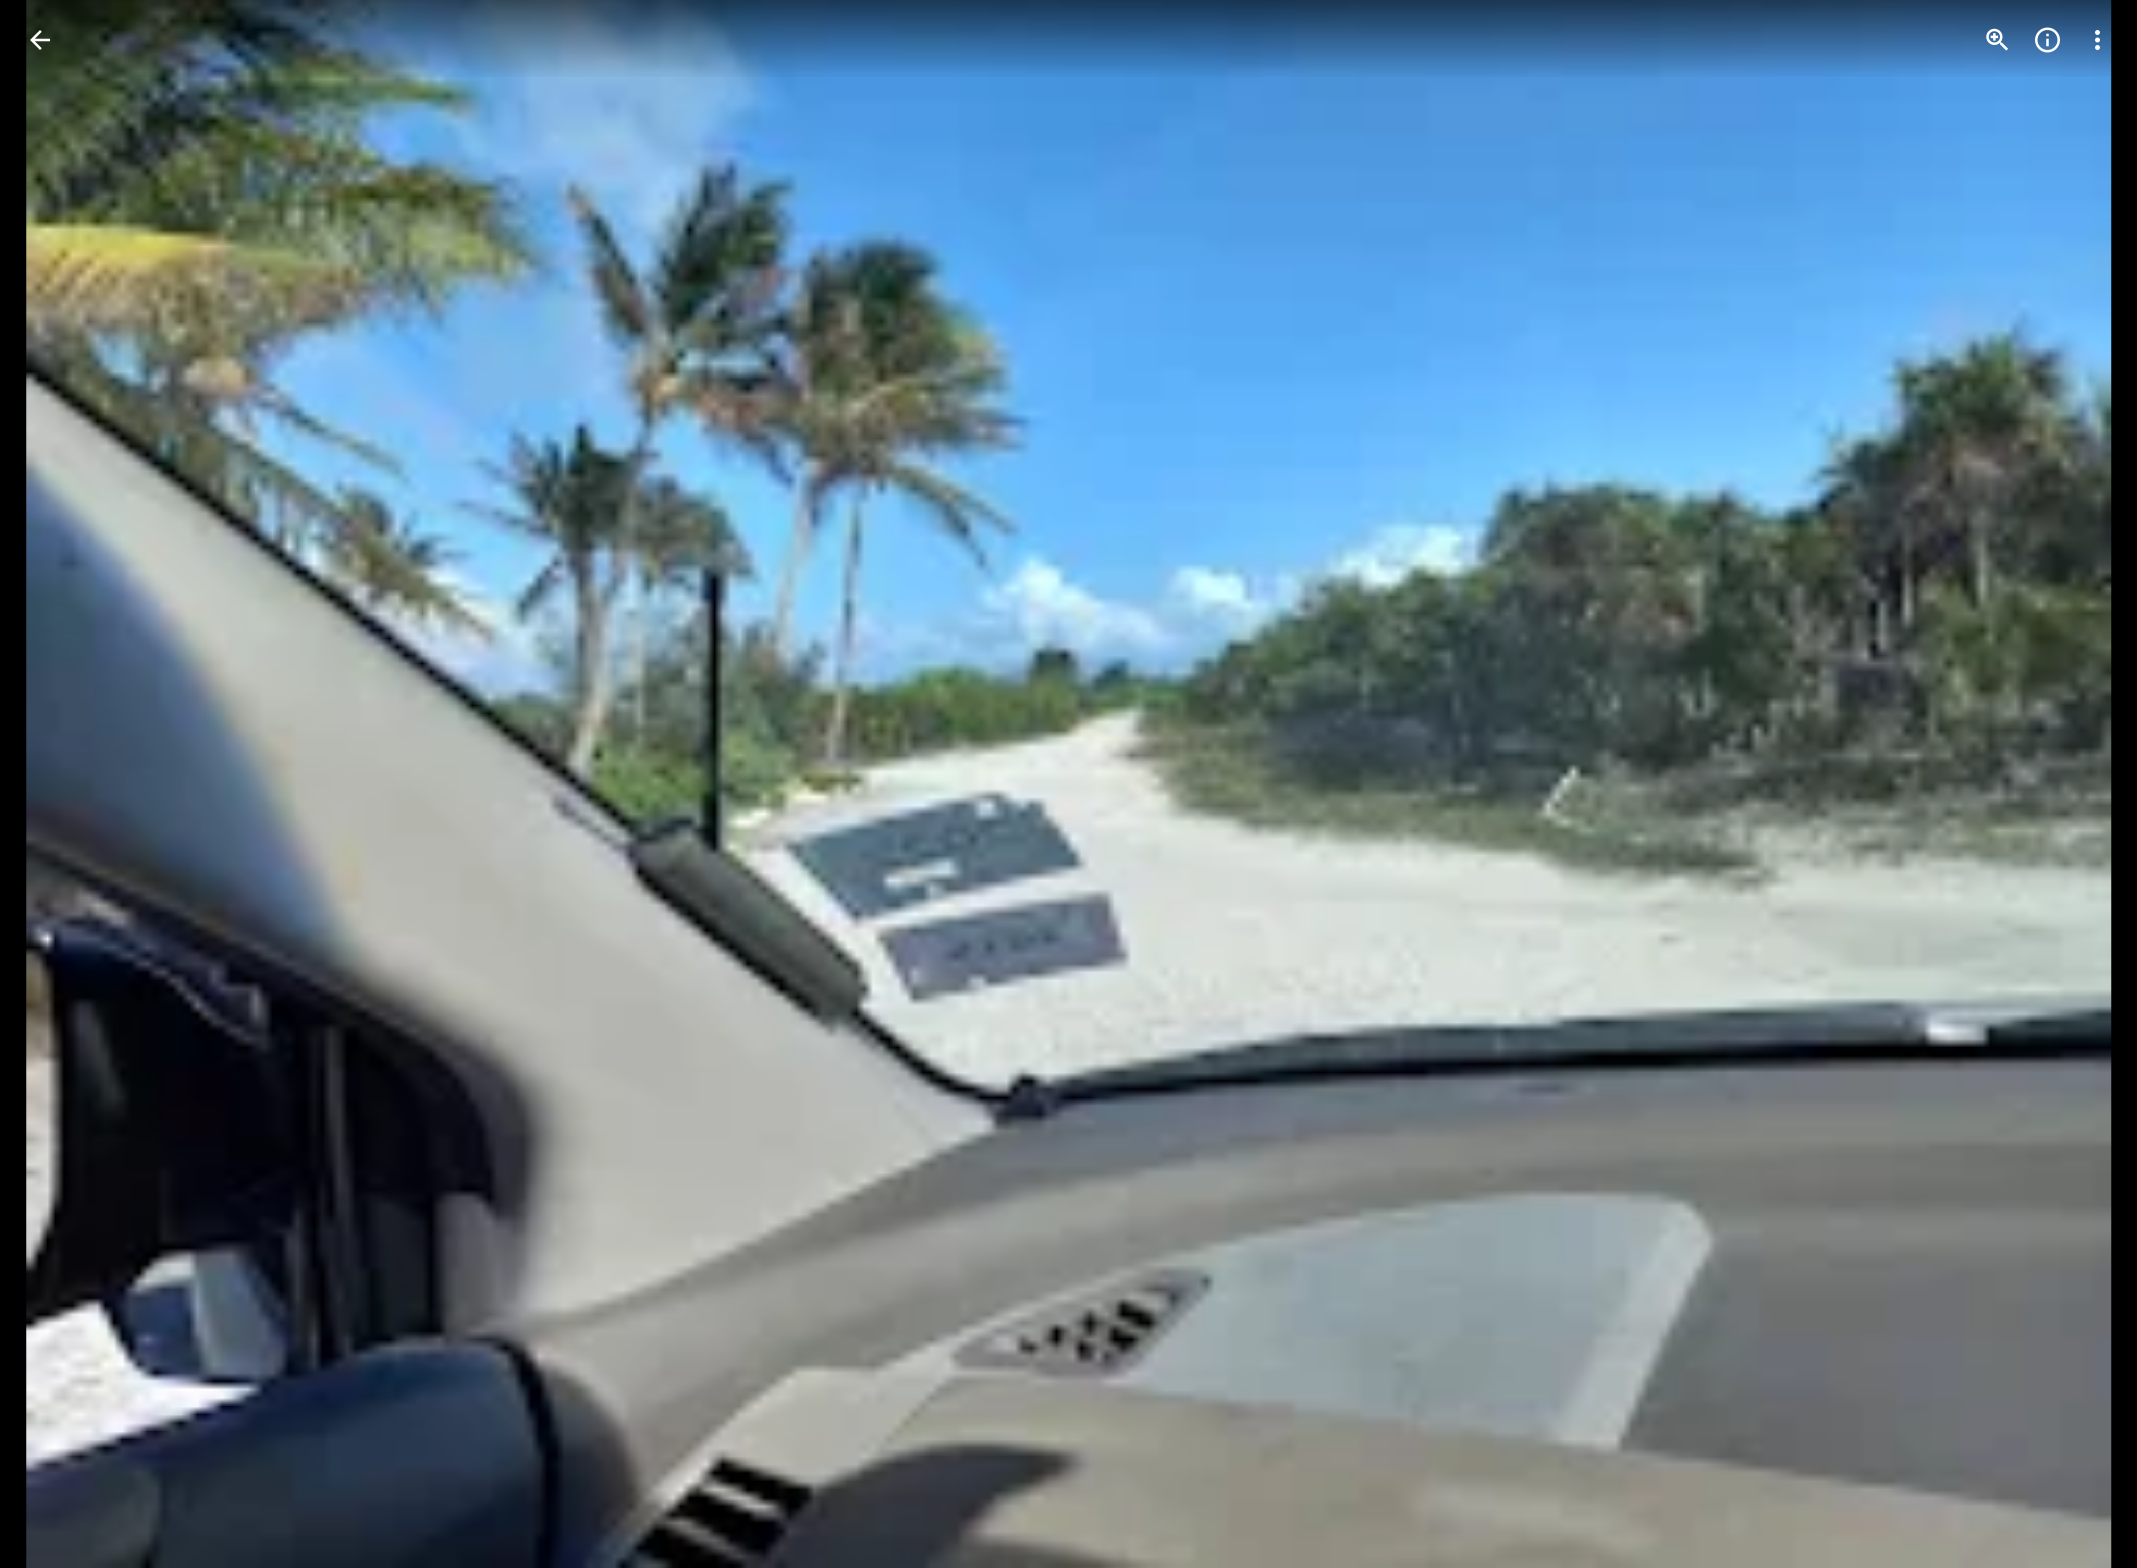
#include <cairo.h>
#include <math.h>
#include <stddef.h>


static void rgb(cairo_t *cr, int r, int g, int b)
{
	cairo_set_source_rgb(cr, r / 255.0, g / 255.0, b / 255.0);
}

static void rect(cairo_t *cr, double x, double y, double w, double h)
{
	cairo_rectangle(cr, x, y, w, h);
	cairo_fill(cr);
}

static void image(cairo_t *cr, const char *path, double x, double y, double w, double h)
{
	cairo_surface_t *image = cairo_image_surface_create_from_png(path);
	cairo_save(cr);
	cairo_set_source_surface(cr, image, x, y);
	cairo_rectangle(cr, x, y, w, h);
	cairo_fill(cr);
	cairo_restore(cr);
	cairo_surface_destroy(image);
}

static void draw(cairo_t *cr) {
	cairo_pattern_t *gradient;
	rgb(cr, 0, 0, 0);
	cairo_paint(cr);
	image(cr, "image0.png", 26, 0, 2086, 1568);
	gradient = cairo_pattern_create_linear(1069, 0, 1069, 80);
	cairo_pattern_add_color_stop_rgba(gradient, 0, 0, 0, 0, 0.6);
	cairo_pattern_add_color_stop_rgba(gradient, 1, 0, 0, 0, 0);
	cairo_set_source(cr, gradient);
	cairo_pattern_destroy(gradient);
	rect(cr, 26, 0, 2086, 77);
	image(cr, "image1.png", 30, 30, 20, 20);
	image(cr, "image2.png", 1986, 28, 22, 23);
	image(cr, "image3.png", 2035, 27, 25, 26);
	image(cr, "image4.png", 2095, 30, 5, 20);
}

int main(void) {
	cairo_surface_t *surface = cairo_image_surface_create(CAIRO_FORMAT_RGB24, 2137, 1568);
	cairo_t *cr = cairo_create(surface);
	cairo_font_options_t *options = cairo_font_options_create();
	cairo_font_options_set_hint_metrics(options, CAIRO_HINT_METRICS_OFF);
	cairo_font_options_set_hint_style(options, CAIRO_HINT_STYLE_NONE);
	cairo_set_font_options(cr, options);
	cairo_set_miter_limit(cr, 4);
	draw(cr);
	cairo_surface_write_to_png(surface, "render.png");
	cairo_font_options_destroy(options);
	cairo_destroy(cr);
	cairo_surface_destroy(surface);
	return 0;
}
